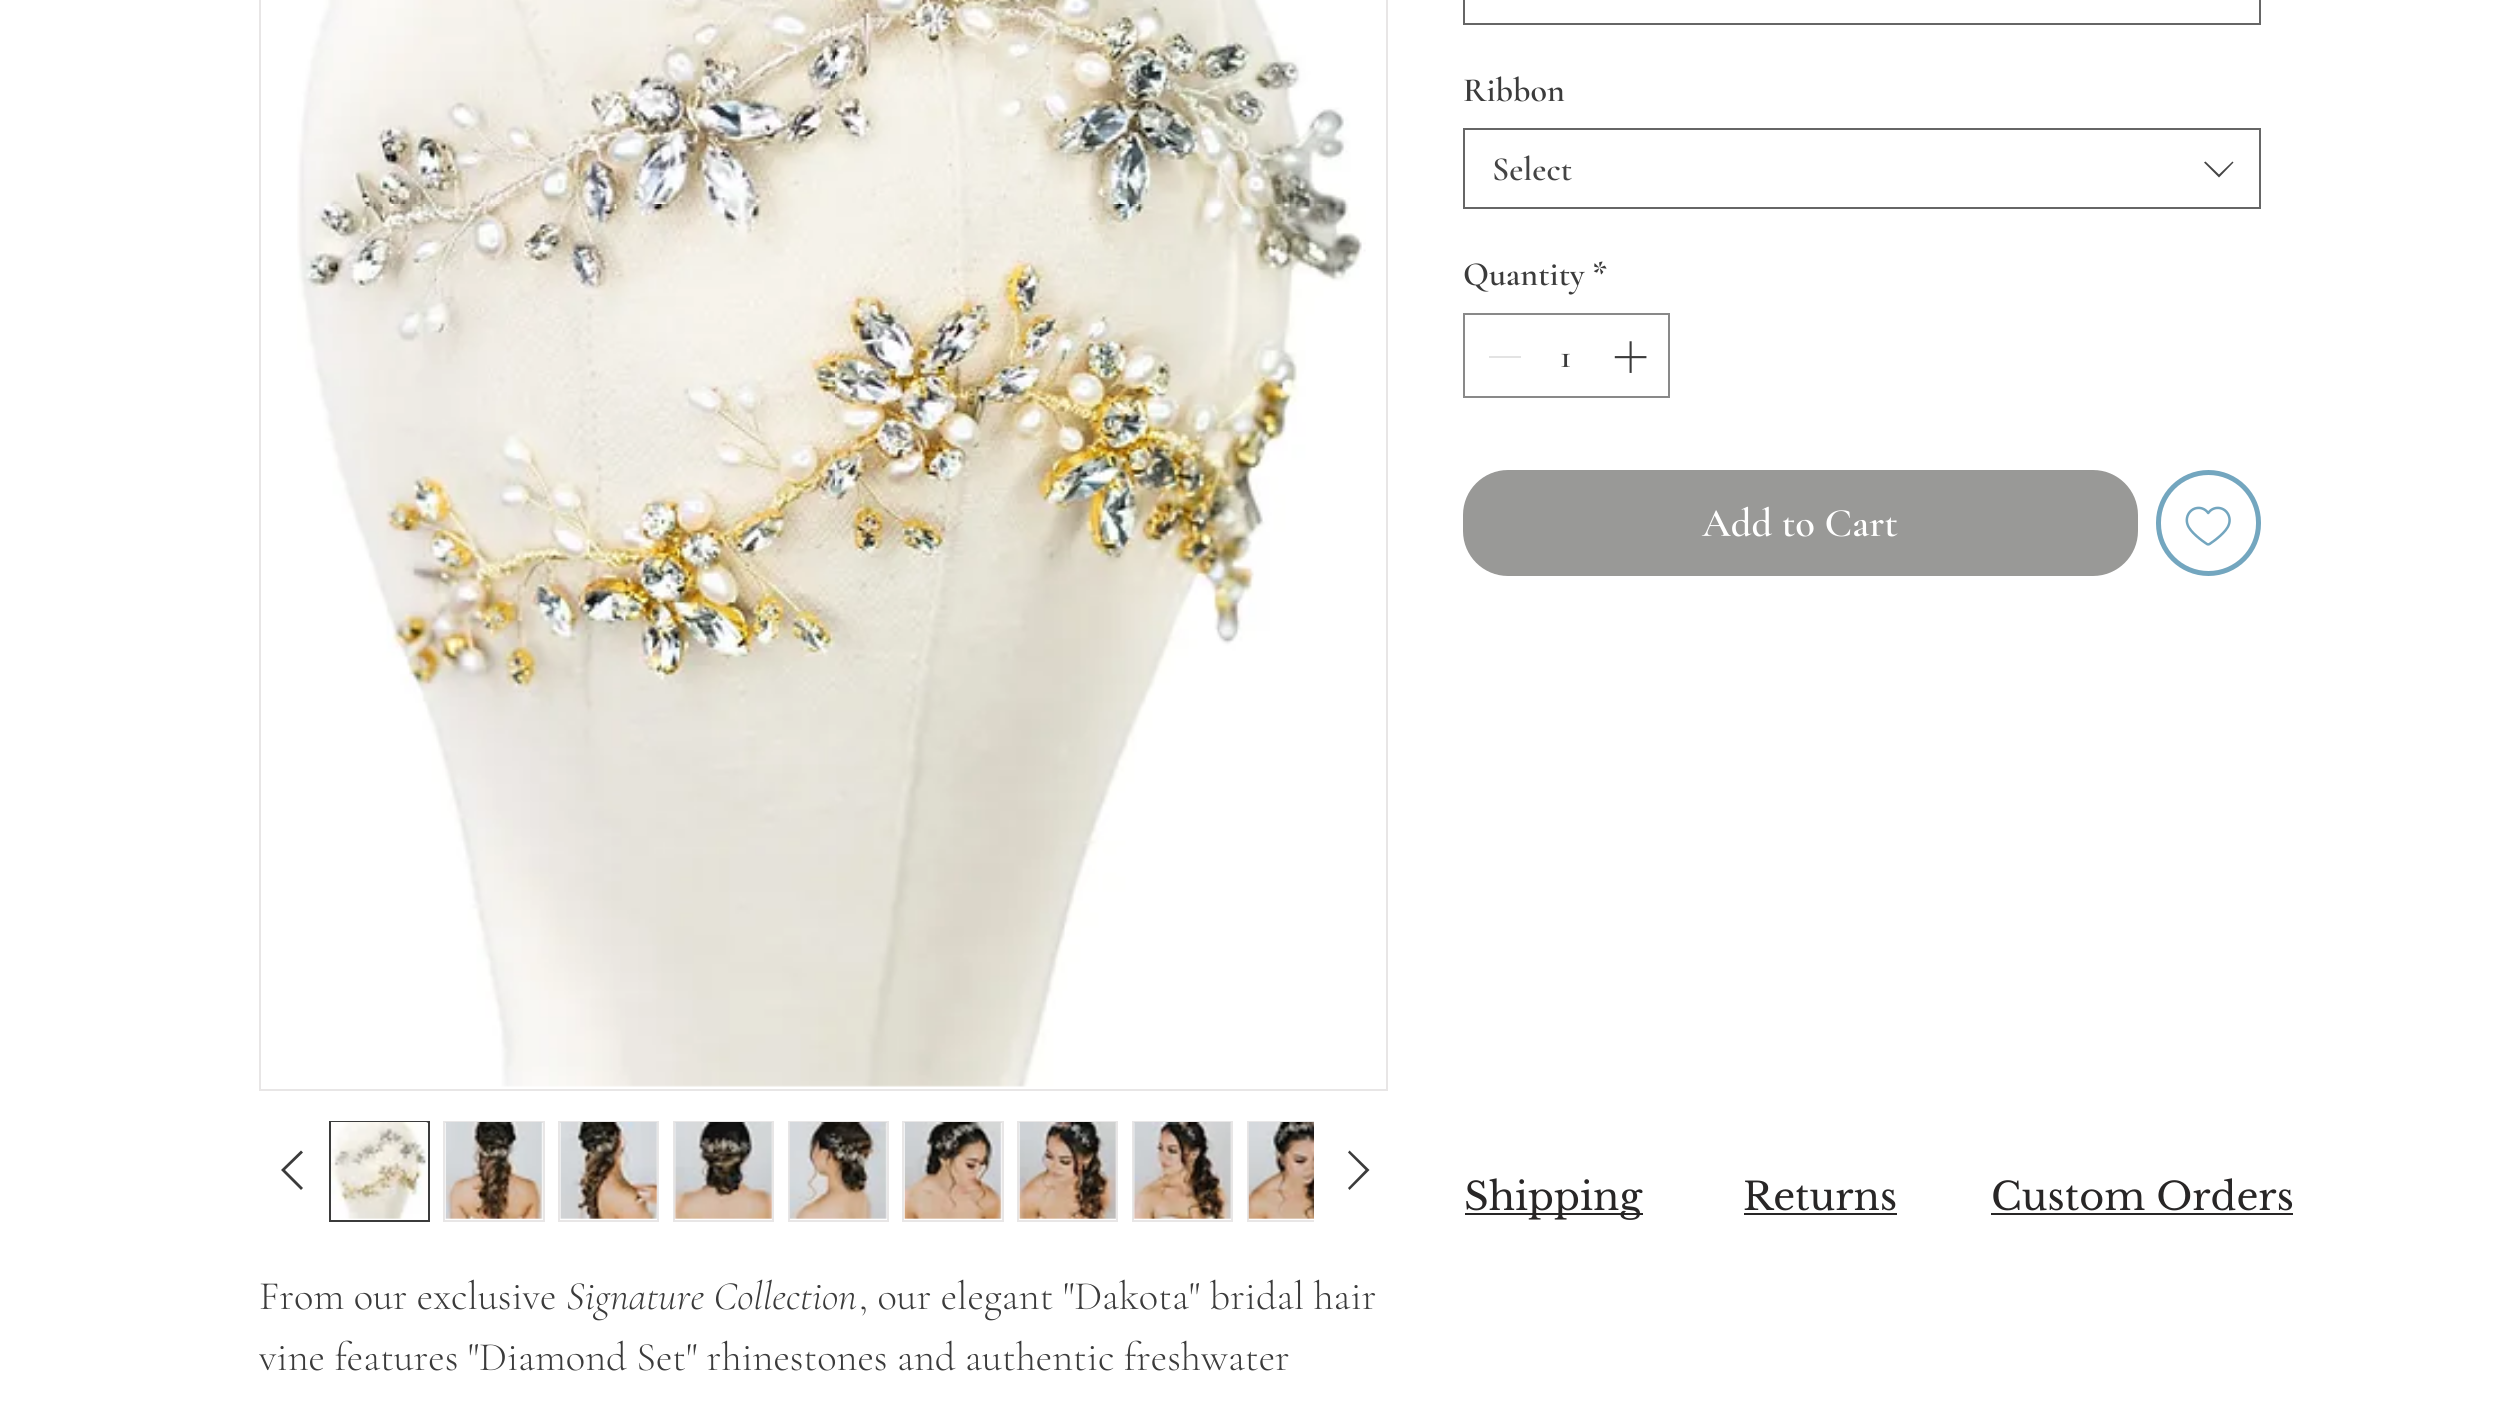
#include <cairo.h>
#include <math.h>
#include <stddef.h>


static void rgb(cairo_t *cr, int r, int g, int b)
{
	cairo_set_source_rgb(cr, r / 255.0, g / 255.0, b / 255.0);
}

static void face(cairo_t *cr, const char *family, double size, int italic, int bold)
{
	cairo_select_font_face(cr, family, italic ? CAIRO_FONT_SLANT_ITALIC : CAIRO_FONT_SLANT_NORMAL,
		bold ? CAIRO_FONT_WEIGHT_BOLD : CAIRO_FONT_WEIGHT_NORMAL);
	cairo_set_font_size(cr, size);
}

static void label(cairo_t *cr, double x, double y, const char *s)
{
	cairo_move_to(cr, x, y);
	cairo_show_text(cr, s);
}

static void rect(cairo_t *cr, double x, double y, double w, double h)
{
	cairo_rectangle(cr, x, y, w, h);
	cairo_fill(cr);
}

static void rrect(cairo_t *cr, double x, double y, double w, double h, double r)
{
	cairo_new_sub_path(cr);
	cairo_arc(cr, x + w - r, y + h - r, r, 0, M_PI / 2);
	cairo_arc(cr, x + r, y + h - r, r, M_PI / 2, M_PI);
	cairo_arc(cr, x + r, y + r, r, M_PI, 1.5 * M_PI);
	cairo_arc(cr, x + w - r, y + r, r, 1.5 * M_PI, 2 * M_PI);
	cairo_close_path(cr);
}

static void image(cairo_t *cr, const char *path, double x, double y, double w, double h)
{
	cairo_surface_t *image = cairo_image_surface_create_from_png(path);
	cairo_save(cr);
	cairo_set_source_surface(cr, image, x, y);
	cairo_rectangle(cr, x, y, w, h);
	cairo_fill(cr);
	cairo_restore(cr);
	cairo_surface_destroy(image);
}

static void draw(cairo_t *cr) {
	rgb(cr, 255, 255, 255);
	cairo_paint(cr);
	cairo_rectangle(cr, 1464, -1, 796, 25);
	rgb(cr, 102, 102, 102);
	cairo_stroke(cr);
	face(cr, "Cormorant Garamond SemiBold", 34, 0, 0);
	rgb(cr, 59, 59, 59);
	label(cr, 1463, 101, "Ribbon");
	cairo_rectangle(cr, 1464, 129, 796, 79);
	rgb(cr, 102, 102, 102);
	cairo_stroke(cr);
	rgb(cr, 68, 68, 68);
	label(cr, 1492, 180, "Select");
	cairo_set_fill_rule(cr, CAIRO_FILL_RULE_EVEN_ODD);
	cairo_new_path(cr);
	cairo_move_to(cr, 2232.5, 161.5);
	cairo_line_to(cr, 2233.5, 162.5);
	cairo_line_to(cr, 2219, 177.5);
	cairo_line_to(cr, 2204, 162.5);
	cairo_line_to(cr, 2205.5, 161.5);
	cairo_line_to(cr, 2219, 174.5);
	cairo_close_path(cr);
	cairo_fill(cr);
	rgb(cr, 59, 59, 59);
	label(cr, 1463, 285, "Quantity");
	label(cr, 1592, 285, "*");
	cairo_rectangle(cr, 1464, 314, 205, 83);
	rgb(cr, 137, 137, 137);
	cairo_stroke(cr);
	rgb(cr, 227, 227, 227);
	rect(cr, 1489, 356, 32, 2);
	rgb(cr, 59, 59, 59);
	label(cr, 1560, 367, "1");
	image(cr, "image0.png", 1614, 341, 33, 32);
	rgb(cr, 153, 153, 151);
	rrect(cr, 1463, 470, 675, 106, 45);
	cairo_fill(cr);
	face(cr, "Cormorant Garamond SemiBold", 40.5, 0, 0);
	rgb(cr, 255, 255, 255);
	label(cr, 1702, 536, "Add to Cart");
	rrect(cr, 2158.5, 472.5, 100, 101, 50);
	rgb(cr, 115, 166, 191);
	cairo_set_line_width(cr, 5);
	cairo_stroke(cr);
	image(cr, "image1.png", 2185, 506, 46, 40);
	cairo_rectangle(cr, 260, -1, 1127, 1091);
	rgb(cr, 232, 230, 230);
	cairo_set_line_width(cr, 2);
	cairo_stroke(cr);
	image(cr, "image2.png", 297, 0, 1069, 1087);
	rgb(cr, 59, 59, 59);
	cairo_new_path(cr);
	cairo_move_to(cr, 301, 1150.5);
	cairo_line_to(cr, 303, 1152.5);
	cairo_line_to(cr, 285, 1170);
	cairo_line_to(cr, 303, 1188);
	cairo_line_to(cr, 301, 1190);
	cairo_line_to(cr, 281, 1170);
	cairo_close_path(cr);
	cairo_fill(cr);
	cairo_rectangle(cr, 330, 1122, 99, 99);
	cairo_stroke(cr);
	image(cr, "image3.png", 331, 1122, 97, 97);
	cairo_rectangle(cr, 444, 1122, 100, 99);
	rgb(cr, 232, 230, 230);
	cairo_stroke(cr);
	image(cr, "image4.png", 445, 1122, 98, 97);
	cairo_rectangle(cr, 559, 1122, 99, 99);
	cairo_stroke(cr);
	image(cr, "image5.png", 560, 1122, 98, 97);
	cairo_rectangle(cr, 674, 1122, 99, 99);
	cairo_stroke(cr);
	image(cr, "image6.png", 674, 1122, 98, 97);
	cairo_rectangle(cr, 789, 1122, 99, 99);
	cairo_stroke(cr);
	image(cr, "image7.png", 789, 1122, 98, 97);
	cairo_rectangle(cr, 903, 1122, 100, 99);
	cairo_stroke(cr);
	image(cr, "image8.png", 904, 1122, 98, 97);
	cairo_rectangle(cr, 1018, 1122, 99, 99);
	cairo_stroke(cr);
	image(cr, "image9.png", 1018, 1122, 98, 97);
	cairo_rectangle(cr, 1133, 1122, 99, 99);
	cairo_stroke(cr);
	image(cr, "image10.png", 1133, 1122, 98, 97);
	cairo_save(cr);
	cairo_set_fill_rule(cr, CAIRO_FILL_RULE_WINDING);
	cairo_rectangle(cr, 320, 1112, 994, 119);
	cairo_clip(cr);
	cairo_rectangle(cr, 1248, 1122, 99, 99);
	cairo_stroke(cr);
	cairo_restore(cr);
	image(cr, "image11.png", 1248, 1122, 66, 97);
	rgb(cr, 59, 59, 59);
	cairo_new_path(cr);
	cairo_move_to(cr, 1349.5, 1150.5);
	cairo_line_to(cr, 1369.5, 1170);
	cairo_line_to(cr, 1349.5, 1190);
	cairo_line_to(cr, 1348, 1188);
	cairo_line_to(cr, 1365.5, 1170);
	cairo_line_to(cr, 1348, 1152.5);
	cairo_close_path(cr);
	cairo_fill(cr);
	face(cr, "Cormorant Garamond Light", 40.5, 0, 0);
	label(cr, 259, 1309, "From our exclusive");
	face(cr, "Cormorant Garamond Light", 40.5, 1, 0);
	label(cr, 566, 1309, "Signature Collection");
	face(cr, "Cormorant Garamond Light", 40.5, 0, 0);
	label(cr, 859, 1309, ", our elegant \"Dakota\" bridal hair");
	label(cr, 259, 1370, "vine features \"Diamond Set\" rhinestones and authentic freshwater");
	rgb(cr, 40, 38, 38);
	rect(cr, 1465, 1213, 178, 2);
	face(cr, "Libre Baskerville", 38.25, 0, 0);
	label(cr, 1464, 1210, "Shipping");
	label(cr, 1743, 1210, "Returns");
	rect(cr, 1744, 1213, 153, 2);
	label(cr, 1991, 1210, "Custom Orders");
	rect(cr, 1991, 1213, 302, 2);
}

int main(void) {
	cairo_surface_t *surface = cairo_image_surface_create(CAIRO_FORMAT_RGB24, 2518, 1405);
	cairo_t *cr = cairo_create(surface);
	cairo_font_options_t *options = cairo_font_options_create();
	cairo_font_options_set_hint_metrics(options, CAIRO_HINT_METRICS_OFF);
	cairo_font_options_set_hint_style(options, CAIRO_HINT_STYLE_NONE);
	cairo_set_font_options(cr, options);
	cairo_set_miter_limit(cr, 4);
	draw(cr);
	cairo_surface_write_to_png(surface, "render.png");
	cairo_font_options_destroy(options);
	cairo_destroy(cr);
	cairo_surface_destroy(surface);
	return 0;
}
